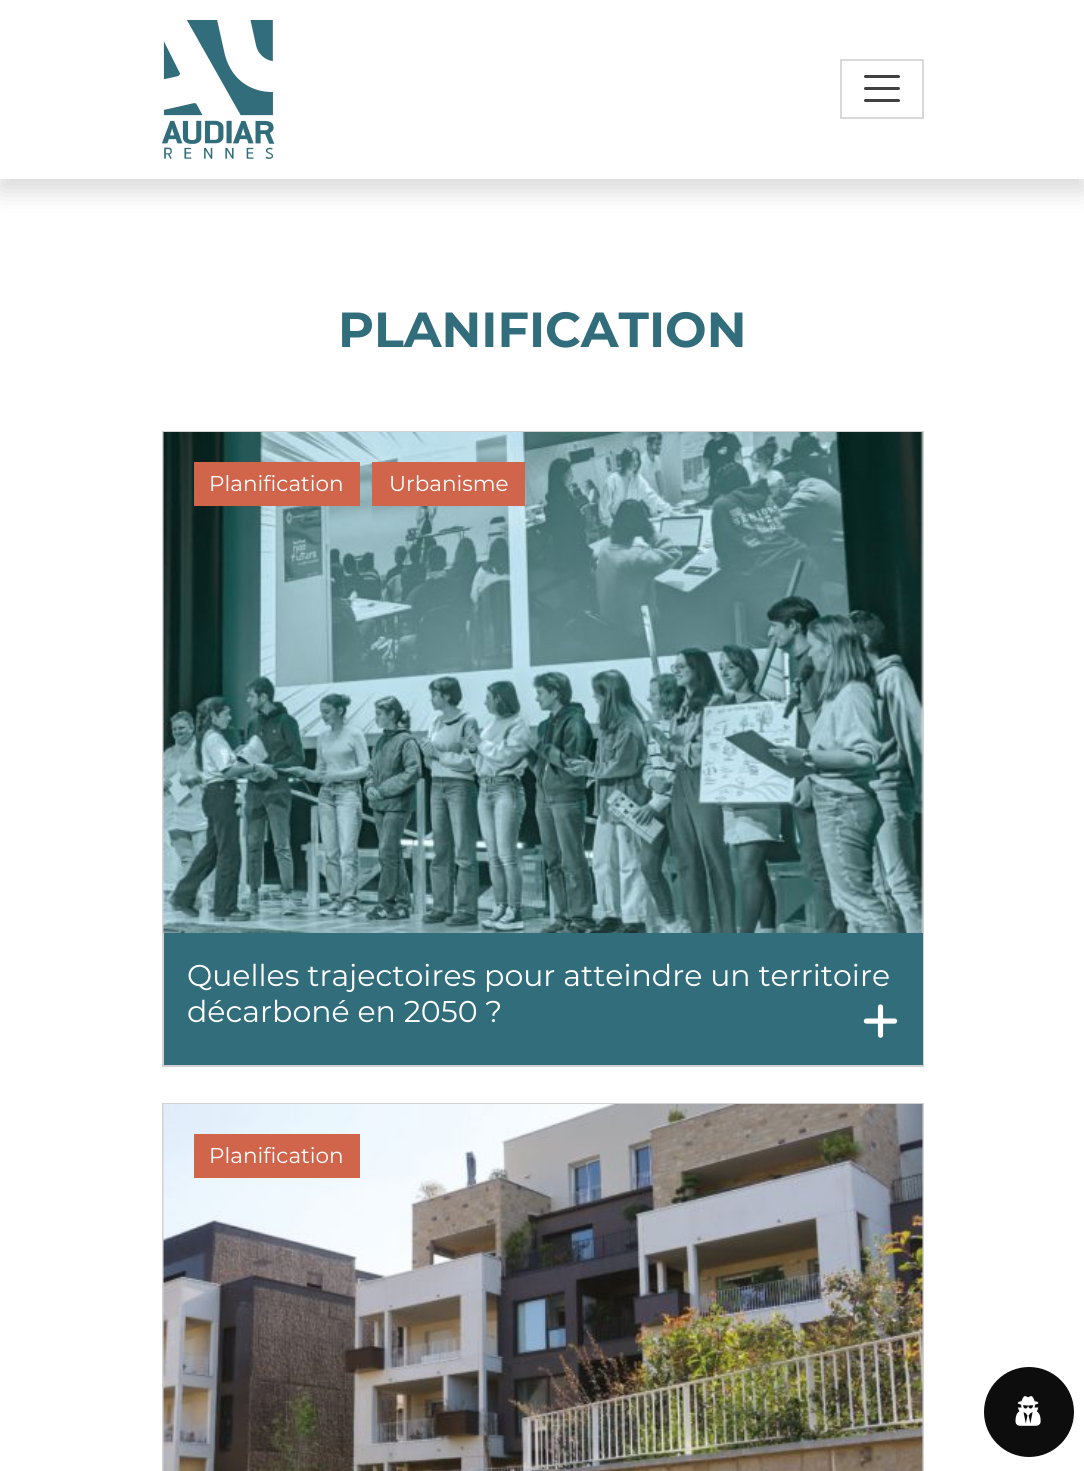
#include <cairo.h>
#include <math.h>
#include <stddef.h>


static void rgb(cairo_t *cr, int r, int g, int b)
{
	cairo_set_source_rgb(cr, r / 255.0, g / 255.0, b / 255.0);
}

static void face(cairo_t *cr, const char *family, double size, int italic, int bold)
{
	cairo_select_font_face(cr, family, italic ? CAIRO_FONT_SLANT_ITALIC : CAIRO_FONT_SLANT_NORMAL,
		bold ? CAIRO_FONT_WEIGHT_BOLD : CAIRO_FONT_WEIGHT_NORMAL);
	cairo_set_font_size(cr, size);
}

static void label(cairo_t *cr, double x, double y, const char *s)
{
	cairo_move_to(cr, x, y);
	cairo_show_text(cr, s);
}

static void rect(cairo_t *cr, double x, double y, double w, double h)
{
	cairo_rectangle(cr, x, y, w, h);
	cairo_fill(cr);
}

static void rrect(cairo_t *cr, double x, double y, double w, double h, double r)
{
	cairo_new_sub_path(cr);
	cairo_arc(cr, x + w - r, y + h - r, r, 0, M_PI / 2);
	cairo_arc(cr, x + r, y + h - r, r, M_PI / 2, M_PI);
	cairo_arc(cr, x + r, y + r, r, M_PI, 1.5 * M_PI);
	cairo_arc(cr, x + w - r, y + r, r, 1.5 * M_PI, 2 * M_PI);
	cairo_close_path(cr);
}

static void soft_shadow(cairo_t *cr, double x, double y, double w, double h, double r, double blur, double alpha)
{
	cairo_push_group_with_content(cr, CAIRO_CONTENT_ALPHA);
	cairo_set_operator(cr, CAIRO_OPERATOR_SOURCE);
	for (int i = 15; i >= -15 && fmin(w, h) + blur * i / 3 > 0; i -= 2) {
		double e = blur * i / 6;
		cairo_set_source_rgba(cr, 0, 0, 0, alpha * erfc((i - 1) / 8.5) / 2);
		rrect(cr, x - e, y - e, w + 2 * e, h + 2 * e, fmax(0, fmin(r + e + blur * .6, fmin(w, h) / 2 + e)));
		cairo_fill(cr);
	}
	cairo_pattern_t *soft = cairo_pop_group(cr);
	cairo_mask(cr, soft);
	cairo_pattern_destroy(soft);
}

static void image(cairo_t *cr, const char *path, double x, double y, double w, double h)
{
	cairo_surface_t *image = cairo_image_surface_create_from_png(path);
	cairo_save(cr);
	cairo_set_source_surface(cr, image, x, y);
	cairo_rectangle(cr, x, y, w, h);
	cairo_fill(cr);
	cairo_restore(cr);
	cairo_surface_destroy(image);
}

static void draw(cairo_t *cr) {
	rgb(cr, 255, 255, 255);
	cairo_paint(cr);
	rgb(cr, 0, 0, 0);
	soft_shadow(cr, 0, 12, 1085, 179, 0, 12, 0.15);
	rgb(cr, 255, 255, 255);
	rect(cr, 0, 0, 1084, 179);
	image(cr, "image0.png", 162, 20, 113, 139);
	cairo_rectangle(cr, 841, 60, 82, 58);
	rgb(cr, 217, 217, 217);
	cairo_stroke(cr);
	cairo_new_path(cr);
	cairo_move_to(cr, 865.5, 76.5);
	cairo_line_to(cr, 898.5, 76.5);
	cairo_move_to(cr, 865.5, 88.5);
	cairo_line_to(cr, 898.5, 88.5);
	cairo_move_to(cr, 865.5, 100.5);
	cairo_line_to(cr, 898.5, 100.5);
	rgb(cr, 64, 64, 64);
	cairo_set_line_width(cr, 3);
	cairo_set_line_cap(cr, CAIRO_LINE_CAP_ROUND);
	cairo_stroke(cr);
	face(cr, "Montserrat", 49.25, 0, 1);
	rgb(cr, 49, 109, 123);
	label(cr, 338, 347, "PLANIFICATION");
	cairo_rectangle(cr, 163, 432, 760, 634);
	rgb(cr, 210, 210, 210);
	cairo_set_line_width(cr, 2);
	cairo_set_line_cap(cr, CAIRO_LINE_CAP_BUTT);
	cairo_stroke(cr);
	image(cr, "image1.png", 163, 432, 760, 501);
	rgb(cr, 209, 101, 76);
	rect(cr, 194, 462, 166, 44);
	face(cr, "Montserrat", 21.5, 0, 0);
	rgb(cr, 255, 255, 255);
	label(cr, 209, 491, "Planification");
	rgb(cr, 209, 101, 76);
	rect(cr, 372, 462, 153, 44);
	rgb(cr, 255, 255, 255);
	label(cr, 389, 491, "Urbanisme");
	rgb(cr, 49, 109, 123);
	rect(cr, 164, 933, 759, 132);
	face(cr, "Montserrat", 30, 0, 0);
	rgb(cr, 255, 255, 255);
	label(cr, 187, 986, "Quelles trajectoires pour atteindre un territoire");
	label(cr, 187, 1022, "décarboné en 2050 ?");
	image(cr, "image2.png", 863, 1004, 35, 34);
	cairo_rectangle(cr, 163, 1104, 760, 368);
	rgb(cr, 210, 210, 210);
	cairo_stroke(cr);
	image(cr, "image3.png", 163, 1104, 760, 367);
	rgb(cr, 209, 101, 76);
	rect(cr, 194, 1134, 166, 44);
	face(cr, "Montserrat", 21.5, 0, 0);
	rgb(cr, 255, 255, 255);
	label(cr, 209, 1163, "Planification");
	rgb(cr, 13, 13, 13);
	cairo_new_path(cr);
	cairo_arc(cr, 1029, 1412, 45, 0, 2 * M_PI);
	cairo_fill(cr);
	image(cr, "image4.png", 1015, 1396, 26, 30);
}

int main(void) {
	cairo_surface_t *surface = cairo_image_surface_create(CAIRO_FORMAT_RGB24, 1084, 1471);
	cairo_t *cr = cairo_create(surface);
	cairo_font_options_t *options = cairo_font_options_create();
	cairo_font_options_set_hint_metrics(options, CAIRO_HINT_METRICS_OFF);
	cairo_font_options_set_hint_style(options, CAIRO_HINT_STYLE_NONE);
	cairo_set_font_options(cr, options);
	cairo_set_miter_limit(cr, 4);
	draw(cr);
	cairo_surface_write_to_png(surface, "render.png");
	cairo_font_options_destroy(options);
	cairo_destroy(cr);
	cairo_surface_destroy(surface);
	return 0;
}
